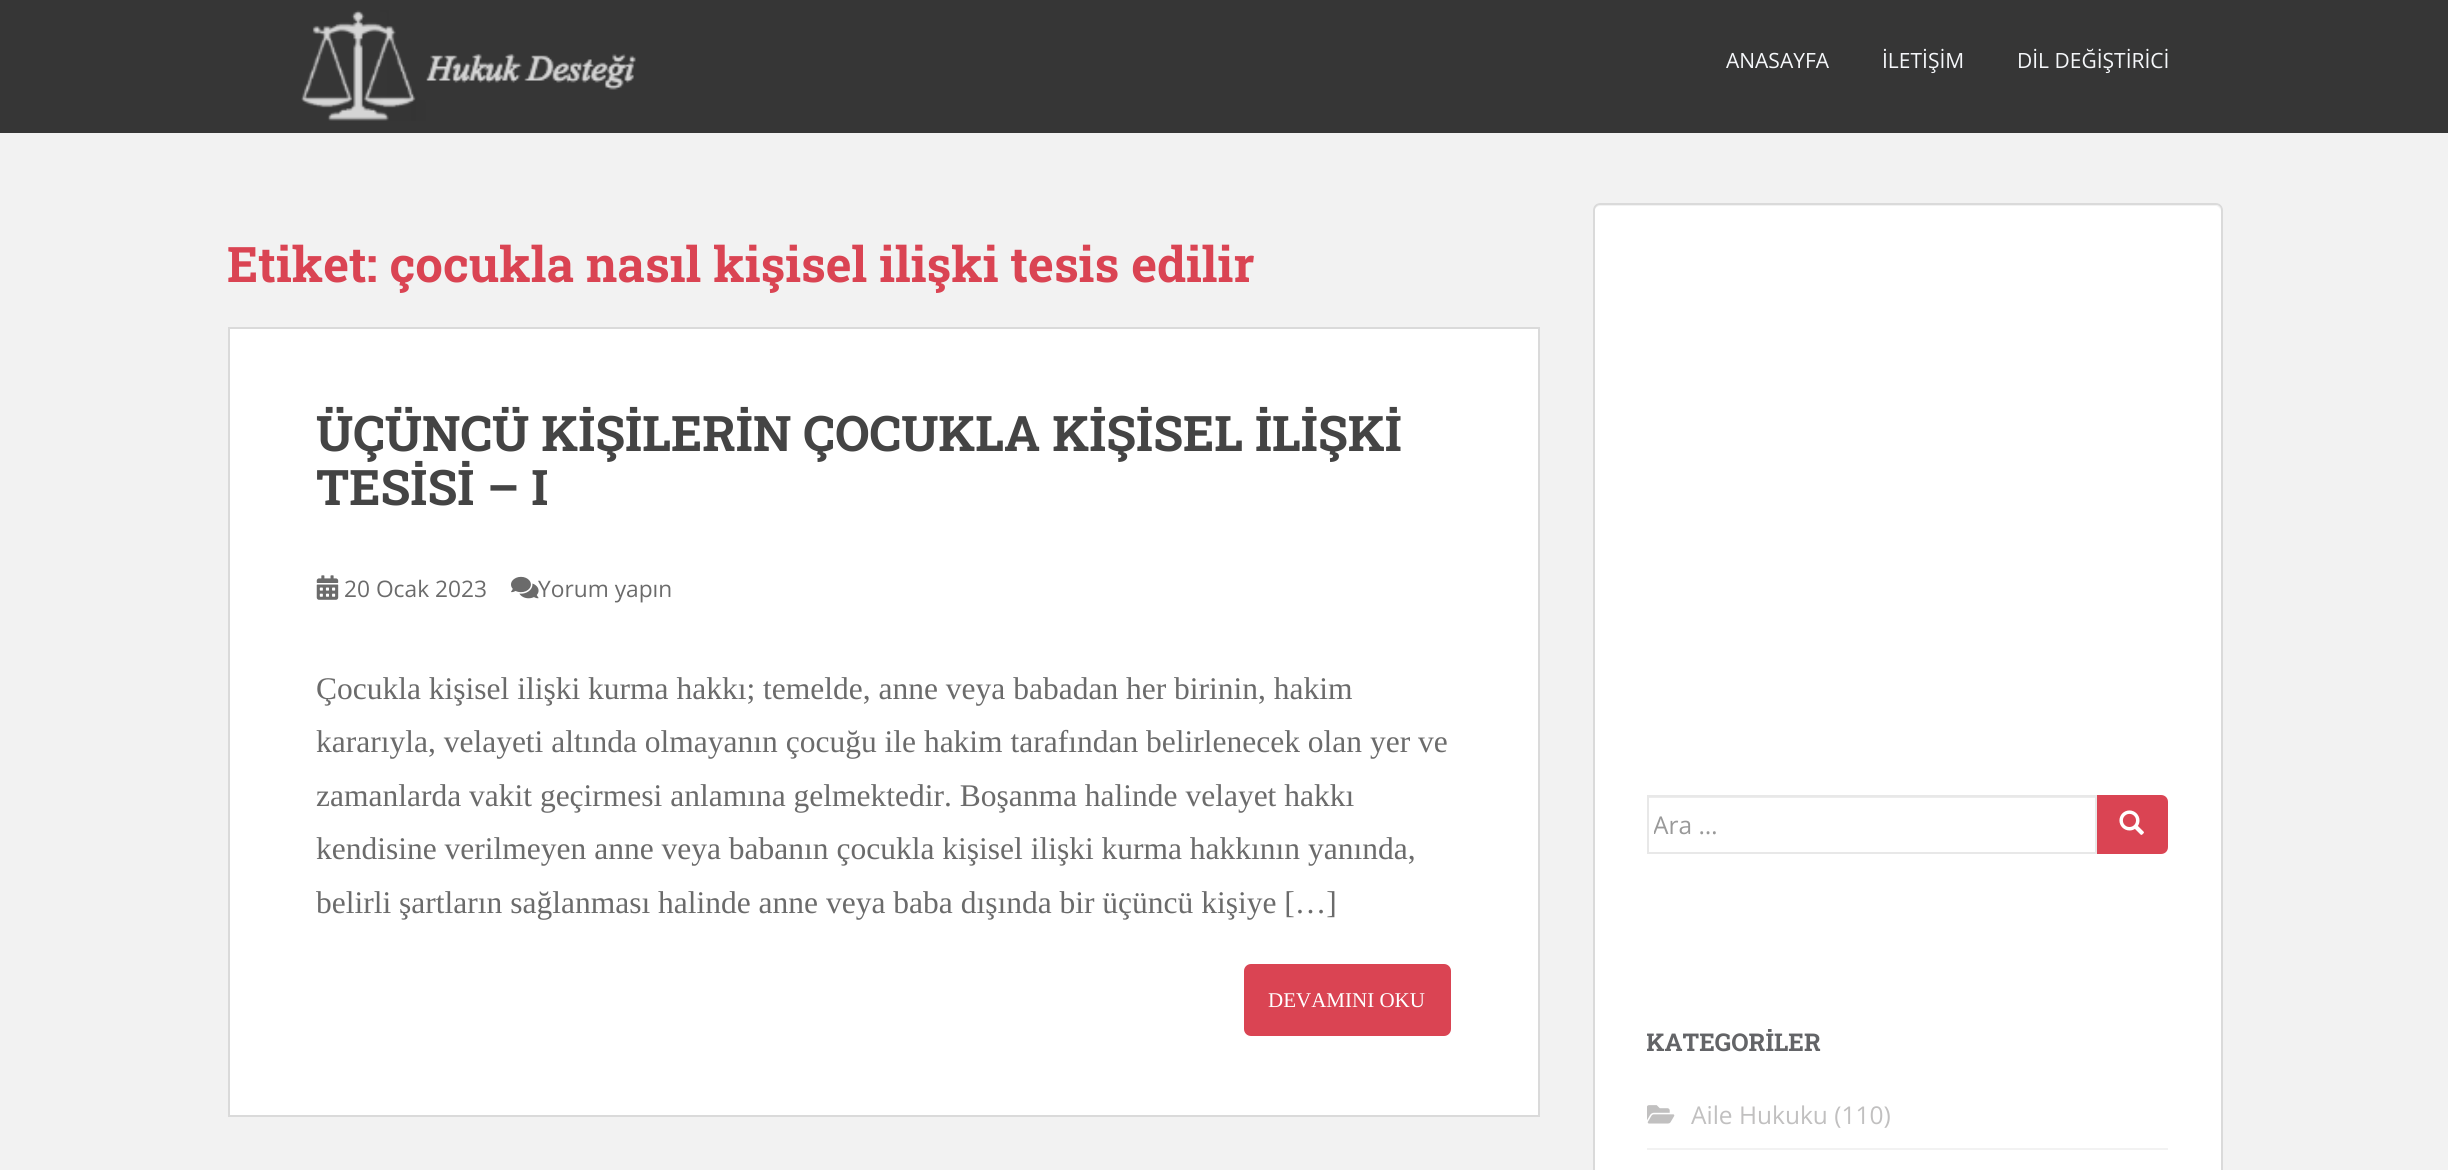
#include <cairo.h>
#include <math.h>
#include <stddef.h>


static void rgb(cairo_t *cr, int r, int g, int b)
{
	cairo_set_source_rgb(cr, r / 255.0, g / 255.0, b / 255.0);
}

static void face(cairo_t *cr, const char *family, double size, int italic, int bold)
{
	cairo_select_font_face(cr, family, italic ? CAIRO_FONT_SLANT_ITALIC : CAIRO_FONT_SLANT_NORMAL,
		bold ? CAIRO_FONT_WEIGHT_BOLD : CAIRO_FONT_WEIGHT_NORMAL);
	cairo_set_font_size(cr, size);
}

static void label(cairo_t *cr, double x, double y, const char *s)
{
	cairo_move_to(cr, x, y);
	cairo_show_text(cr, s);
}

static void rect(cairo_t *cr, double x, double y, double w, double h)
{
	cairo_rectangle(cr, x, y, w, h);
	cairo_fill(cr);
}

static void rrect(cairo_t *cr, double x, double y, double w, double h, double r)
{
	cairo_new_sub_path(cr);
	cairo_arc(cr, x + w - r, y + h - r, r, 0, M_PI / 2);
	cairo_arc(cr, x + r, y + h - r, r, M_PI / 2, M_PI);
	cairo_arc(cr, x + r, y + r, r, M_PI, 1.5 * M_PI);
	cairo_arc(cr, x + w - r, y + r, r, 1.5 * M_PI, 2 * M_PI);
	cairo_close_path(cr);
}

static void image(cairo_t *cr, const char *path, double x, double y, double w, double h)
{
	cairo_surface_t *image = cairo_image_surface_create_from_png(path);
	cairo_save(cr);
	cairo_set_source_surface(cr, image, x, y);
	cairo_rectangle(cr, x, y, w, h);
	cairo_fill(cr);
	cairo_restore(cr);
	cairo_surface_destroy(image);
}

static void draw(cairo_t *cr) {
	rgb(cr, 242, 242, 242);
	cairo_paint(cr);
	rgb(cr, 54, 54, 54);
	rect(cr, 0, 0, 2448, 133);
	image(cr, "image0.png", 301, 10, 335, 111);
	face(cr, "Open Sans", 21, 0, 0);
	rgb(cr, 245, 247, 250);
	label(cr, 1726, 68, "ANASAYFA");
	label(cr, 1882, 68, "İLETİŞİM");
	label(cr, 2017, 68, "DİL DEĞİŞTİRİCİ");
	face(cr, "Roboto Slab", 49, 0, 1);
	rgb(cr, 218, 68, 83);
	label(cr, 227, 282, "Etiket: çocukla nasıl kişisel ilişki tesis edilir");
	rgb(cr, 255, 255, 255);
	cairo_rectangle(cr, 229, 328, 1310, 788);
	cairo_fill_preserve(cr);
	rgb(cr, 218, 218, 218);
	cairo_stroke(cr);
	rgb(cr, 68, 68, 68);
	label(cr, 316, 451, "ÜÇÜNCÜ KİŞİLERİN ÇOCUKLA KİŞİSEL İLİŞKİ");
	label(cr, 316, 505, "TESİSİ – I");
	image(cr, "image1.png", 316, 575, 23, 25);
	face(cr, "Open Sans", 22.75, 0, 0);
	rgb(cr, 107, 107, 107);
	label(cr, 344, 597, "20 Ocak 2023");
	image(cr, "image2.png", 511, 576, 28, 23);
	label(cr, 538, 597, "Yorum yapın");
	face(cr, "Liberation Serif", 31.5, 0, 0);
	label(cr, 316, 699, "Çocukla kişisel ilişki kurma hakkı; temelde, anne veya babadan her birinin, hakim");
	label(cr, 316, 752, "kararıyla, velayeti altında olmayanın çocuğu ile hakim tarafından belirlenecek olan yer ve");
	label(cr, 316, 806, "zamanlarda vakit geçirmesi anlamına gelmektedir. Boşanma halinde velayet hakkı");
	label(cr, 316, 859, "kendisine verilmeyen anne veya babanın çocukla kişisel ilişki kurma hakkının yanında,");
	label(cr, 316, 913, "belirli şartların sağlanması halinde anne veya baba dışında bir üçüncü kişiye […]");
	rgb(cr, 218, 68, 83);
	rrect(cr, 1245, 965, 205, 70, 6);
	cairo_fill_preserve(cr);
	cairo_stroke(cr);
	face(cr, "Liberation Serif", 21, 0, 0);
	rgb(cr, 255, 255, 255);
	label(cr, 1268, 1007, "DEVAMINI OKU");
	rrect(cr, 1593, 203, 630, 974, 7);
	cairo_fill(cr);
	rgb(cr, 242, 242, 242);
	cairo_new_path(cr);
	cairo_move_to(cr, 1600, 206);
	cairo_line_to(cr, 2216, 206);
	cairo_curve_to(cr, 2218, 206, 2221, 209, 2221, 212);
	cairo_curve_to(cr, 2221, 209, 2220, 205, 2216, 205);
	cairo_line_to(cr, 1599, 205);
	cairo_curve_to(cr, 1595, 205, 1594, 209, 1594, 212);
	cairo_curve_to(cr, 1594, 209, 1597, 206, 1600, 206);
	cairo_close_path(cr);
	cairo_fill(cr);
	rrect(cr, 1594, 204, 628, 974, 6);
	rgb(cr, 218, 218, 218);
	cairo_stroke(cr);
	rgb(cr, 236, 236, 236);
	rect(cr, 1649, 797, 446, 1);
	cairo_rectangle(cr, 1648, 796, 448, 57);
	rgb(cr, 232, 232, 232);
	cairo_stroke(cr);
	cairo_save(cr);
	cairo_rectangle(cr, 1654, 807, 436, 33);
	cairo_clip(cr);
	face(cr, "Open Sans", 24.5, 0, 0);
	rgb(cr, 153, 153, 153);
	label(cr, 1653, 834, "Ara …");
	cairo_restore(cr);
	rgb(cr, 218, 68, 83);
	cairo_new_path(cr);
	cairo_move_to(cr, 2098, 796);
	cairo_line_to(cr, 2161, 796);
	cairo_curve_to(cr, 2164.5, 796, 2167, 798.5, 2167, 802);
	cairo_line_to(cr, 2167, 847);
	cairo_curve_to(cr, 2167, 850.5, 2164.5, 853, 2161, 853);
	cairo_line_to(cr, 2098, 853);
	cairo_close_path(cr);
	cairo_fill_preserve(cr);
	cairo_stroke(cr);
	image(cr, "image3.png", 2119, 810, 25, 25);
	cairo_save(cr);
	cairo_rectangle(cr, 1647, 1029, 521, 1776);
	cairo_clip(cr);
	face(cr, "Roboto Slab", 24.5, 0, 1);
	rgb(cr, 99, 100, 103);
	label(cr, 1646, 1051, "KATEGORİLER");
	cairo_restore(cr);
	rgb(cr, 242, 242, 242);
	rect(cr, 1647, 1148, 521, 2);
	image(cr, "image4.png", 1647, 1105, 28, 19);
	face(cr, "Open Sans", 24.5, 0, 0);
	rgb(cr, 193, 192, 192);
	label(cr, 1691, 1124, "Aile Hukuku (110)");
}

int main(void) {
	cairo_surface_t *surface = cairo_image_surface_create(CAIRO_FORMAT_RGB24, 2448, 1170);
	cairo_t *cr = cairo_create(surface);
	cairo_font_options_t *options = cairo_font_options_create();
	cairo_font_options_set_hint_metrics(options, CAIRO_HINT_METRICS_OFF);
	cairo_font_options_set_hint_style(options, CAIRO_HINT_STYLE_NONE);
	cairo_set_font_options(cr, options);
	cairo_set_miter_limit(cr, 4);
	draw(cr);
	cairo_surface_write_to_png(surface, "render.png");
	cairo_font_options_destroy(options);
	cairo_destroy(cr);
	cairo_surface_destroy(surface);
	return 0;
}
